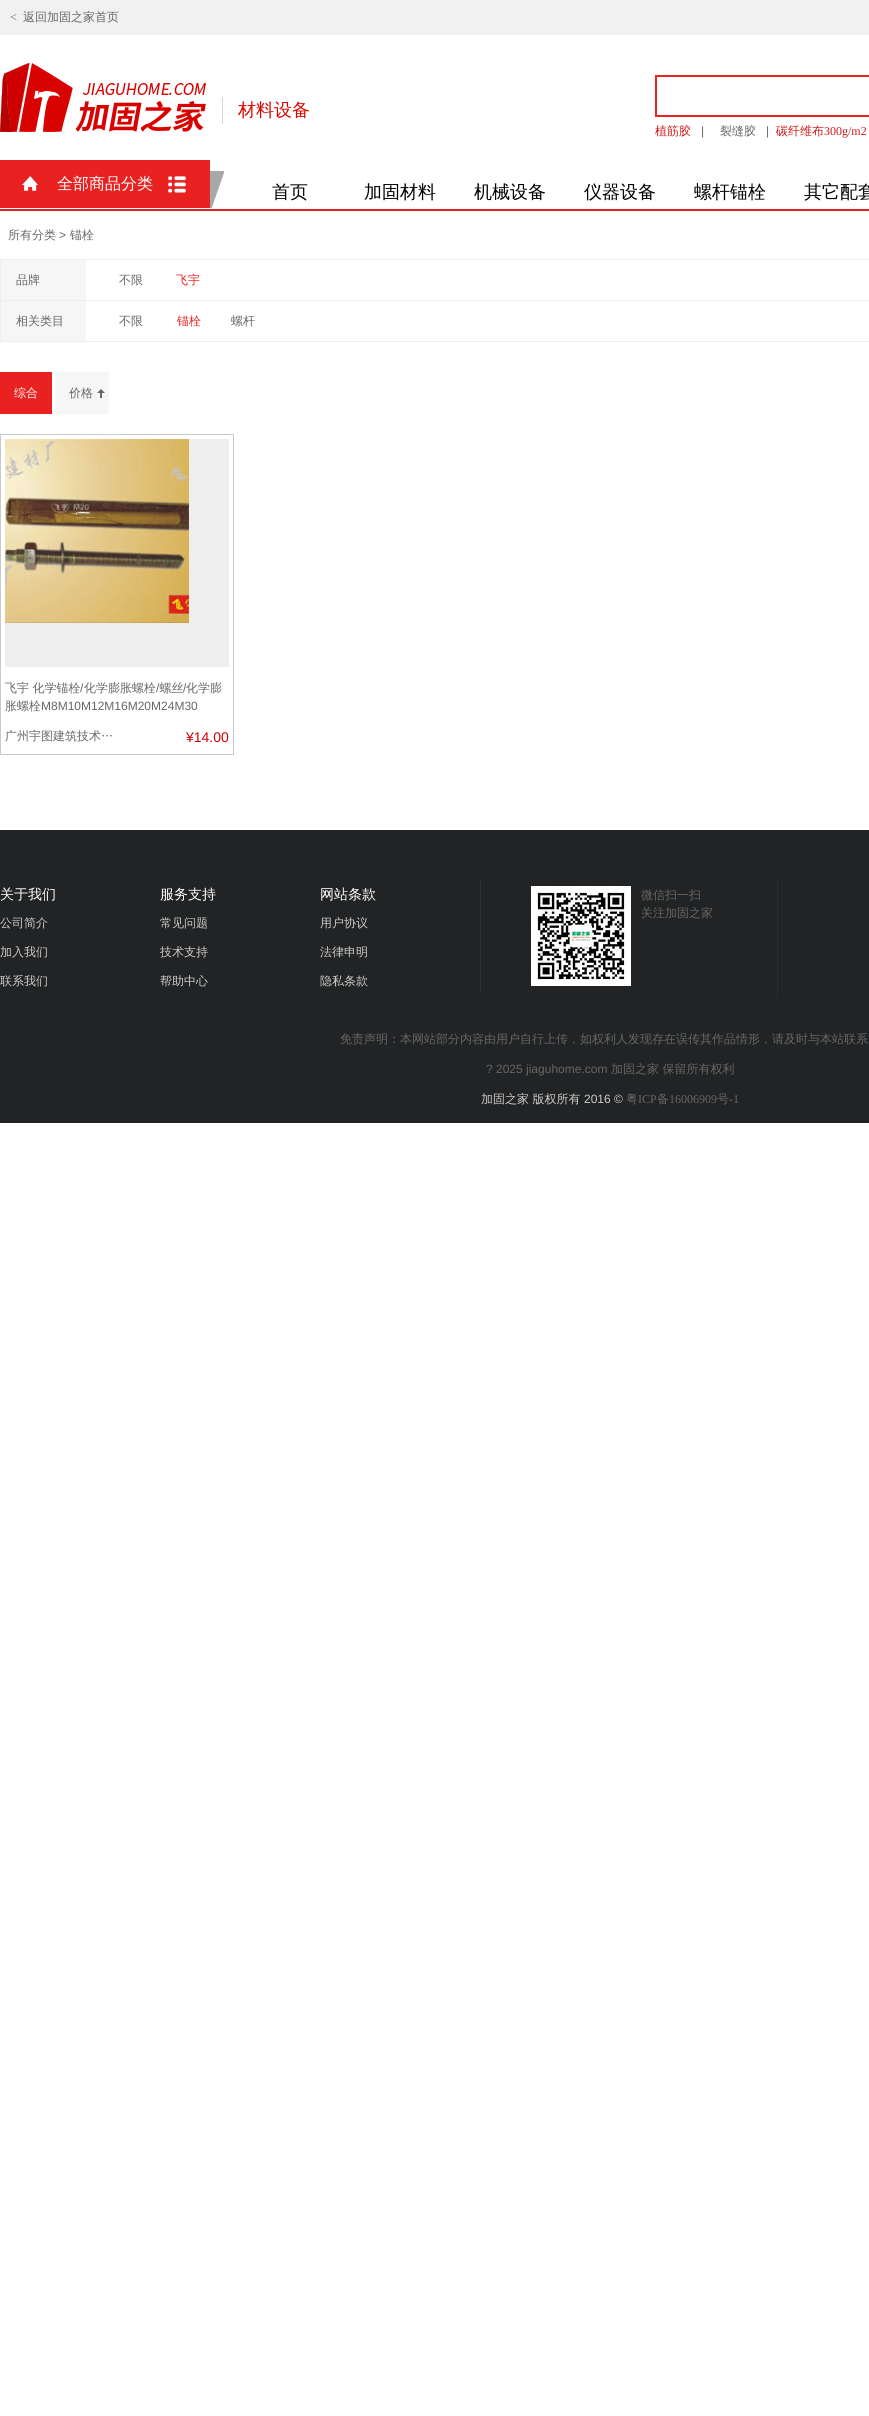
#include <cairo.h>
#include <math.h>
#include <stddef.h>


static void rgb(cairo_t *cr, int r, int g, int b)
{
	cairo_set_source_rgb(cr, r / 255.0, g / 255.0, b / 255.0);
}

static void face(cairo_t *cr, const char *family, double size, int italic, int bold)
{
	cairo_select_font_face(cr, family, italic ? CAIRO_FONT_SLANT_ITALIC : CAIRO_FONT_SLANT_NORMAL,
		bold ? CAIRO_FONT_WEIGHT_BOLD : CAIRO_FONT_WEIGHT_NORMAL);
	cairo_set_font_size(cr, size);
}

static void label(cairo_t *cr, double x, double y, const char *s)
{
	cairo_move_to(cr, x, y);
	cairo_show_text(cr, s);
}

static void rect(cairo_t *cr, double x, double y, double w, double h)
{
	cairo_rectangle(cr, x, y, w, h);
	cairo_fill(cr);
}

static void image(cairo_t *cr, const char *path, double x, double y, double w, double h)
{
	cairo_surface_t *image = cairo_image_surface_create_from_png(path);
	cairo_save(cr);
	cairo_set_source_surface(cr, image, x, y);
	cairo_rectangle(cr, x, y, w, h);
	cairo_fill(cr);
	cairo_restore(cr);
	cairo_surface_destroy(image);
}

static void draw(cairo_t *cr) {
	rgb(cr, 255, 255, 255);
	cairo_paint(cr);
	rgb(cr, 241, 241, 241);
	rect(cr, 0, 0, 869, 35);
	face(cr, "Liberation Serif", 12, 0, 0);
	rgb(cr, 102, 102, 102);
	label(cr, 10, 21, "<");
	face(cr, "WenQuanYi Zen Hei Medium", 12, 0, 0);
	label(cr, 23, 21, "返回加固之家首页");
	image(cr, "image0.png", 0, 63, 206, 69);
	rgb(cr, 215, 215, 215);
	rect(cr, 222, 97, 1, 27);
	face(cr, "WenQuanYi Zen Hei Medium", 18, 0, 0);
	rgb(cr, 215, 9, 0);
	label(cr, 238, 116, "材料设备");
	cairo_rectangle(cr, 656, 76, 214, 40);
	rgb(cr, 233, 33, 33);
	cairo_stroke(cr);
	face(cr, "WenQuanYi Zen Hei Medium", 12, 0, 0);
	rgb(cr, 210, 24, 24);
	label(cr, 655, 135, "植筋胶");
	face(cr, "Liberation Sans", 12, 0, 0);
	rgb(cr, 102, 102, 102);
	label(cr, 701, 135, "|");
	face(cr, "WenQuanYi Zen Hei Medium", 12, 0, 0);
	label(cr, 720, 135, "裂缝胶");
	face(cr, "Liberation Sans", 12, 0, 0);
	label(cr, 766, 135, "|");
	face(cr, "WenQuanYi Zen Hei Medium", 12, 0, 0);
	rgb(cr, 210, 24, 24);
	label(cr, 776, 135, "碳纤维布");
	face(cr, "Liberation Serif", 12, 0, 0);
	label(cr, 824, 135, "300g/m2");
	rgb(cr, 233, 33, 33);
	rect(cr, 0, 160, 210, 48);
	image(cr, "image1.png", 22, 176, 16, 15);
	face(cr, "WenQuanYi Zen Hei Medium", 16, 0, 0);
	rgb(cr, 255, 255, 255);
	label(cr, 57, 189, "全部商品分类");
	image(cr, "image2.png", 168, 176, 18, 17);
	image(cr, "image3.png", 210, 170, 14, 38);
	face(cr, "WenQuanYi Zen Hei Medium", 18, 0, 0);
	rgb(cr, 1, 1, 1);
	label(cr, 272, 198, "首页");
	label(cr, 364, 198, "加固材料");
	label(cr, 474, 198, "机械设备");
	label(cr, 584, 198, "仪器设备");
	label(cr, 694, 198, "螺杆锚栓");
	label(cr, 804, 198, "其它配套");
	rgb(cr, 233, 33, 33);
	rect(cr, 0, 209, 869, 2);
	face(cr, "WenQuanYi Zen Hei Medium", 12, 0, 0);
	rgb(cr, 102, 102, 102);
	label(cr, 8, 239, "所有分类");
	face(cr, "Liberation Sans", 12, 0, 0);
	label(cr, 59, 239, ">");
	face(cr, "WenQuanYi Zen Hei Medium", 12, 0, 0);
	label(cr, 70, 239, "锚栓");
	rgb(cr, 238, 238, 238);
	rect(cr, 0, 259, 869, 1);
	rect(cr, 0, 259, 1, 41);
	rgb(cr, 246, 246, 246);
	rect(cr, 1, 260, 85, 40);
	rgb(cr, 102, 102, 102);
	label(cr, 16, 284, "品牌");
	label(cr, 119, 284, "不限");
	rgb(cr, 233, 33, 33);
	label(cr, 176, 284, "飞宇");
	cairo_rectangle(cr, 0.5, 300.5, 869, 41);
	rgb(cr, 238, 238, 238);
	cairo_set_line_width(cr, 1);
	cairo_stroke(cr);
	rgb(cr, 246, 246, 246);
	rect(cr, 1, 301, 85, 40);
	rgb(cr, 102, 102, 102);
	label(cr, 16, 325, "相关类目");
	label(cr, 119, 325, "不限");
	rgb(cr, 233, 33, 33);
	label(cr, 177, 325, "锚栓");
	rgb(cr, 102, 102, 102);
	label(cr, 231, 325, "螺杆");
	rgb(cr, 233, 33, 33);
	rect(cr, 0, 372, 52, 42);
	rgb(cr, 255, 255, 255);
	label(cr, 14, 397, "综合");
	rgb(cr, 246, 246, 246);
	rect(cr, 55, 372, 54, 42);
	image(cr, "image4.png", 97, 389, 8, 9);
	rgb(cr, 102, 102, 102);
	label(cr, 69, 397, "价格");
	cairo_rectangle(cr, 0.5, 434.5, 233, 320);
	rgb(cr, 201, 201, 201);
	cairo_stroke(cr);
	rgb(cr, 238, 238, 238);
	rect(cr, 5, 439, 224, 228);
	image(cr, "image5.png", 5, 439, 184, 184);
	rgb(cr, 102, 102, 102);
	label(cr, 5, 692, "飞宇 化学锚栓");
	face(cr, "Liberation Sans", 12, 0, 0);
	label(cr, 80, 692, "/");
	face(cr, "WenQuanYi Zen Hei Medium", 12, 0, 0);
	label(cr, 84, 692, "化学膨胀螺栓 螺丝");
	face(cr, "Liberation Sans", 12, 0, 0);
	label(cr, 183, 692, "/");
	face(cr, "WenQuanYi Zen Hei Medium", 12, 0, 0);
	label(cr, 186, 692, "化学膨");
	face(cr, "Liberation Sans", 12, 0, 0);
	label(cr, 156, 692, "/");
	face(cr, "WenQuanYi Zen Hei Medium", 12, 0, 0);
	label(cr, 5, 710, "胀螺栓");
	face(cr, "Liberation Sans", 12, 0, 0);
	label(cr, 41, 710, "M8M10M12M16M20M24M30");
	face(cr, "WenQuanYi Zen Hei Medium", 12, 0, 0);
	label(cr, 5, 740, "广州宇图建筑技术…");
	face(cr, "Liberation Sans", 14, 0, 0);
	rgb(cr, 208, 2, 4);
	label(cr, 186, 742, "¥14.00");
	rgb(cr, 34, 35, 36);
	rect(cr, 0, 830, 869, 293);
	rgb(cr, 45, 46, 47);
	rect(cr, 480, 880, 1, 112);
	face(cr, "WenQuanYi Zen Hei Medium", 14, 0, 0);
	rgb(cr, 255, 255, 255);
	label(cr, 0, 899, "关于我们");
	face(cr, "WenQuanYi Zen Hei Medium", 12, 0, 0);
	rgb(cr, 204, 204, 204);
	label(cr, 0, 927, "公司简介");
	label(cr, 0, 956, "加入我们");
	label(cr, 0, 985, "联系我们");
	face(cr, "WenQuanYi Zen Hei Medium", 14, 0, 0);
	rgb(cr, 255, 255, 255);
	label(cr, 160, 899, "服务支持");
	face(cr, "WenQuanYi Zen Hei Medium", 12, 0, 0);
	rgb(cr, 204, 204, 204);
	label(cr, 160, 927, "常见问题");
	label(cr, 160, 956, "技术支持");
	label(cr, 160, 985, "帮助中心");
	face(cr, "WenQuanYi Zen Hei Medium", 14, 0, 0);
	rgb(cr, 255, 255, 255);
	label(cr, 320, 899, "网站条款");
	face(cr, "WenQuanYi Zen Hei Medium", 12, 0, 0);
	rgb(cr, 204, 204, 204);
	label(cr, 320, 927, "用户协议");
	label(cr, 320, 956, "法律申明");
	label(cr, 320, 985, "隐私条款");
	rgb(cr, 45, 46, 47);
	rect(cr, 777, 880, 1, 118);
	image(cr, "image6.png", 531, 886, 100, 100);
	rgb(cr, 102, 102, 102);
	label(cr, 641, 899, "微信扫一扫");
	label(cr, 641, 917, "关注加固之家");
	label(cr, 340, 1043, "免责声明：本网站部分内容由用户自行上传，如权利人发现存在误传其作品情形，请及时与本站联系");
	face(cr, "Liberation Sans", 12, 0, 0);
	label(cr, 486, 1073, "? 2025 jiaguhome.com");
	face(cr, "WenQuanYi Zen Hei Medium", 12, 0, 0);
	label(cr, 611, 1073, "加固之家 保留所有权利");
	rgb(cr, 204, 204, 204);
	label(cr, 481, 1103, "加固之家 版权所有");
	face(cr, "Liberation Sans", 12, 0, 0);
	label(cr, 584, 1103, "2016 ©");
	face(cr, "WenQuanYi Zen Hei Medium", 12, 0, 0);
	rgb(cr, 102, 102, 102);
	label(cr, 626, 1103, "粤");
	face(cr, "Liberation Serif", 12, 0, 0);
	label(cr, 638, 1103, "ICP");
	face(cr, "WenQuanYi Zen Hei Medium", 12, 0, 0);
	label(cr, 657, 1103, "备");
	face(cr, "Liberation Serif", 12, 0, 0);
	label(cr, 669, 1103, "16006909");
	face(cr, "WenQuanYi Zen Hei Medium", 12, 0, 0);
	label(cr, 717, 1103, "号");
	face(cr, "Liberation Serif", 12, 0, 0);
	label(cr, 729, 1103, "-1");
}

int main(void) {
	cairo_surface_t *surface = cairo_image_surface_create(CAIRO_FORMAT_RGB24, 869, 2416);
	cairo_t *cr = cairo_create(surface);
	cairo_font_options_t *options = cairo_font_options_create();
	cairo_font_options_set_hint_metrics(options, CAIRO_HINT_METRICS_OFF);
	cairo_font_options_set_hint_style(options, CAIRO_HINT_STYLE_NONE);
	cairo_set_font_options(cr, options);
	cairo_set_miter_limit(cr, 4);
	draw(cr);
	cairo_surface_write_to_png(surface, "render.png");
	cairo_font_options_destroy(options);
	cairo_destroy(cr);
	cairo_surface_destroy(surface);
	return 0;
}
